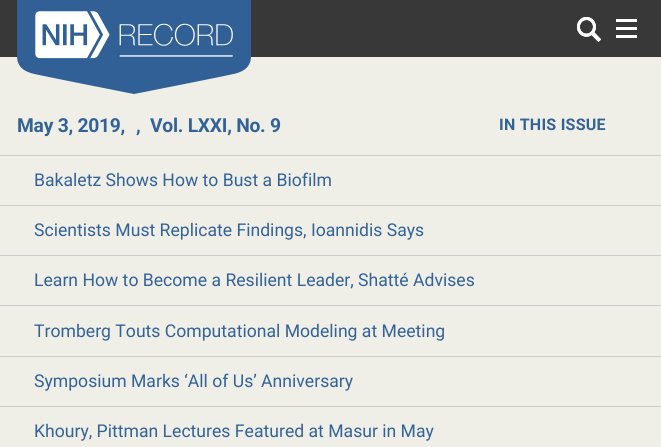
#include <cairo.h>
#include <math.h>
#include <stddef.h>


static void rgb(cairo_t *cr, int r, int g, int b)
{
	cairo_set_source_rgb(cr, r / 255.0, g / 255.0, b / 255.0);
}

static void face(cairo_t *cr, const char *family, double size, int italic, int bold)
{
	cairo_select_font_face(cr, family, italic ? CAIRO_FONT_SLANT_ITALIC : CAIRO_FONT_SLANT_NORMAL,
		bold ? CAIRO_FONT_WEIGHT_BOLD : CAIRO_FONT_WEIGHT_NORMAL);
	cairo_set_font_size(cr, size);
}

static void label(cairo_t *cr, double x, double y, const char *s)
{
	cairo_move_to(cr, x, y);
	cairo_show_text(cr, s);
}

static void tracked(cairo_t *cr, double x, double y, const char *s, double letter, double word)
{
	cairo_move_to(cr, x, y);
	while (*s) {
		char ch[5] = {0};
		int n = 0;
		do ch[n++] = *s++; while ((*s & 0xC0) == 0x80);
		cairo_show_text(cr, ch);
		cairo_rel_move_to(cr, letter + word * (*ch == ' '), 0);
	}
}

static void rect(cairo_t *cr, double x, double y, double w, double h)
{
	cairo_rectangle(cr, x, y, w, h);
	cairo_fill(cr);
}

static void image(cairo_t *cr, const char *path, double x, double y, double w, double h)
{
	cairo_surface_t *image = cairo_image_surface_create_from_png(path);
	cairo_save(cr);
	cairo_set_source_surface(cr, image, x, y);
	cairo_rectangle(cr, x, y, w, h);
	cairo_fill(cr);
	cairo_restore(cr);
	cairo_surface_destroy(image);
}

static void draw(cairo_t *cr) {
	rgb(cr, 56, 56, 56);
	cairo_paint(cr);
	rgb(cr, 239, 239, 232);
	rect(cr, 0, 57, 661, 390);
	image(cr, "image0.png", 17, 0, 234, 94);
	image(cr, "image1.png", 577, 17, 24, 25);
	image(cr, "image2.png", 577, 17, 24, 25);
	image(cr, "image3.png", 616, 19, 21, 19);
	face(cr, "Roboto", 19.25, 0, 1);
	rgb(cr, 51, 98, 150);
	tracked(cr, 17, 132, "May 3, 2019,", -0.25, 0);
	tracked(cr, 136, 132, ",", -0.25, 0);
	tracked(cr, 150, 132, "Vol. LXXI, No. 9", -0.25, 0);
	rgb(cr, 204, 204, 204);
	rect(cr, 0, 155, 661, 1);
	face(cr, "Roboto", 17.6, 0, 0);
	rgb(cr, 51, 98, 150);
	label(cr, 34, 186, "Bakaletz Shows How to Bust a Biofilm");
	rgb(cr, 204, 204, 204);
	rect(cr, 0, 205, 661, 1);
	rgb(cr, 51, 98, 150);
	label(cr, 34, 236, "Scientists Must Replicate Findings, Ioannidis Says");
	rgb(cr, 204, 204, 204);
	rect(cr, 0, 255, 661, 1);
	rgb(cr, 51, 98, 150);
	label(cr, 34, 286, "Learn How to Become a Resilient Leader, Shatté Advises");
	rgb(cr, 204, 204, 204);
	rect(cr, 0, 305, 661, 1);
	rgb(cr, 51, 98, 150);
	label(cr, 34, 337, "Tromberg Touts Computational Modeling at Meeting");
	rgb(cr, 204, 204, 204);
	rect(cr, 0, 356, 661, 1);
	rgb(cr, 51, 98, 150);
	label(cr, 34, 387, "Symposium Marks ‘All of Us’ Anniversary");
	rgb(cr, 204, 204, 204);
	rect(cr, 0, 406, 661, 1);
	rgb(cr, 51, 98, 150);
	label(cr, 34, 437, "Khoury, Pittman Lectures Featured at Masur in May");
	face(cr, "Roboto", 16, 0, 1);
	tracked(cr, 499, 130, "IN THIS ISSUE", 0.25, 0);
}

int main(void) {
	cairo_surface_t *surface = cairo_image_surface_create(CAIRO_FORMAT_RGB24, 661, 447);
	cairo_t *cr = cairo_create(surface);
	cairo_font_options_t *options = cairo_font_options_create();
	cairo_font_options_set_hint_metrics(options, CAIRO_HINT_METRICS_OFF);
	cairo_font_options_set_hint_style(options, CAIRO_HINT_STYLE_NONE);
	cairo_set_font_options(cr, options);
	cairo_set_miter_limit(cr, 4);
	draw(cr);
	cairo_surface_write_to_png(surface, "render.png");
	cairo_font_options_destroy(options);
	cairo_destroy(cr);
	cairo_surface_destroy(surface);
	return 0;
}
